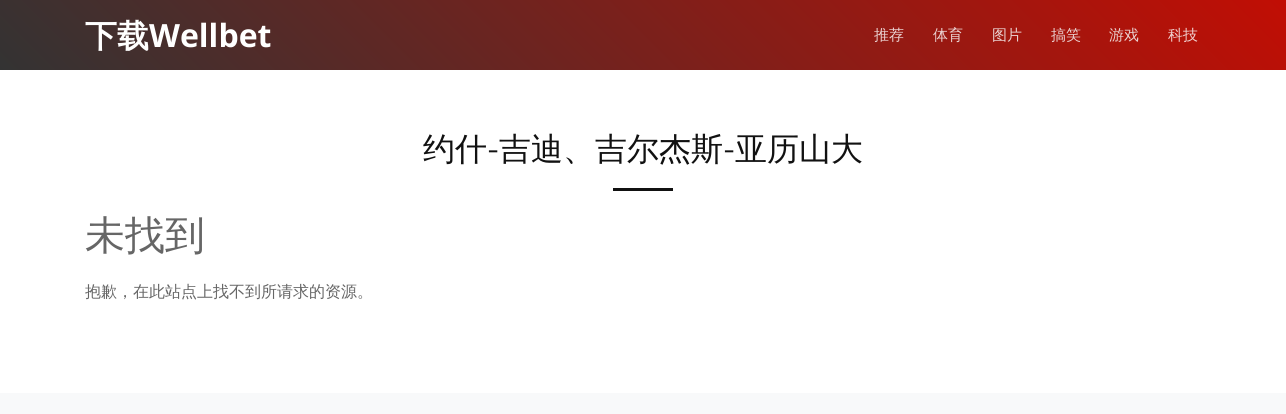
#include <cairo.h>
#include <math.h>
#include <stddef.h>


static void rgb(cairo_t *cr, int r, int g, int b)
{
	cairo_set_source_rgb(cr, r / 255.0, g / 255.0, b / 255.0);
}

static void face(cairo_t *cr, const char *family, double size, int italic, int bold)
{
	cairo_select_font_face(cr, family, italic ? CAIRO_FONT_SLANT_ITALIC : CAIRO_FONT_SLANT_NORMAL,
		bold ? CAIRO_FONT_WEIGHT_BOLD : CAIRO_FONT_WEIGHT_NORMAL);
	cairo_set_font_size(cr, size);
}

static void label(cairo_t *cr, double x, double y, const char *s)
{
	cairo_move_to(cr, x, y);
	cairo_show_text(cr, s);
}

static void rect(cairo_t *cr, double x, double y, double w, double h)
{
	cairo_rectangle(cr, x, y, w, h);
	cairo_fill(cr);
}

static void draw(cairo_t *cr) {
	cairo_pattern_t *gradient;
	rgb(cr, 255, 255, 255);
	cairo_paint(cr);
	gradient = cairo_pattern_create_linear(304, 374, 982, -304);
	cairo_pattern_add_color_stop_rgba(gradient, 0, 0.2, 0.2, 0.2, 1);
	cairo_pattern_add_color_stop_rgba(gradient, 1, 0.757, 0.055, 0.016, 1);
	cairo_set_source(cr, gradient);
	cairo_pattern_destroy(gradient);
	rect(cr, 0, 0, 1286, 70);
	face(cr, "WenQuanYi Zen Hei", 32, 0, 1);
	rgb(cr, 255, 255, 255);
	label(cr, 85, 47, "下载");
	face(cr, "Open Sans", 32, 0, 1);
	label(cr, 149, 47, "Wellbet");
	face(cr, "WenQuanYi Zen Hei Medium", 15, 0, 0);
	rgb(cr, 234, 209, 208);
	label(cr, 874, 40, "推荐");
	label(cr, 933, 40, "体育");
	label(cr, 992, 40, "图片");
	label(cr, 1051, 40, "搞笑");
	label(cr, 1109, 40, "游戏");
	rgb(cr, 240, 208, 206);
	label(cr, 1168, 40, "科技");
	face(cr, "WenQuanYi Zen Hei Medium", 32, 0, 0);
	rgb(cr, 17, 17, 17);
	label(cr, 423, 160, "约什");
	face(cr, "Montserrat", 32, 0, 0);
	label(cr, 487, 160, "-");
	face(cr, "WenQuanYi Zen Hei Medium", 32, 0, 0);
	label(cr, 499, 160, "吉迪、吉尔杰斯");
	face(cr, "Montserrat", 32, 0, 0);
	label(cr, 723, 160, "-");
	face(cr, "WenQuanYi Zen Hei Medium", 32, 0, 0);
	label(cr, 735, 160, "亚历山大");
	rect(cr, 613, 188, 60, 3);
	face(cr, "WenQuanYi Zen Hei Medium", 40, 0, 0);
	rgb(cr, 102, 102, 102);
	label(cr, 85, 249, "未找到");
	face(cr, "WenQuanYi Zen Hei Medium", 16, 0, 0);
	label(cr, 85, 297, "抱歉，在此站点上找不到所请求的资源。");
	rgb(cr, 248, 249, 250);
	rect(cr, 0, 393, 1286, 21);
}

int main(void) {
	cairo_surface_t *surface = cairo_image_surface_create(CAIRO_FORMAT_RGB24, 1286, 414);
	cairo_t *cr = cairo_create(surface);
	cairo_font_options_t *options = cairo_font_options_create();
	cairo_font_options_set_hint_metrics(options, CAIRO_HINT_METRICS_OFF);
	cairo_font_options_set_hint_style(options, CAIRO_HINT_STYLE_NONE);
	cairo_set_font_options(cr, options);
	cairo_set_miter_limit(cr, 4);
	draw(cr);
	cairo_surface_write_to_png(surface, "render.png");
	cairo_font_options_destroy(options);
	cairo_destroy(cr);
	cairo_surface_destroy(surface);
	return 0;
}
